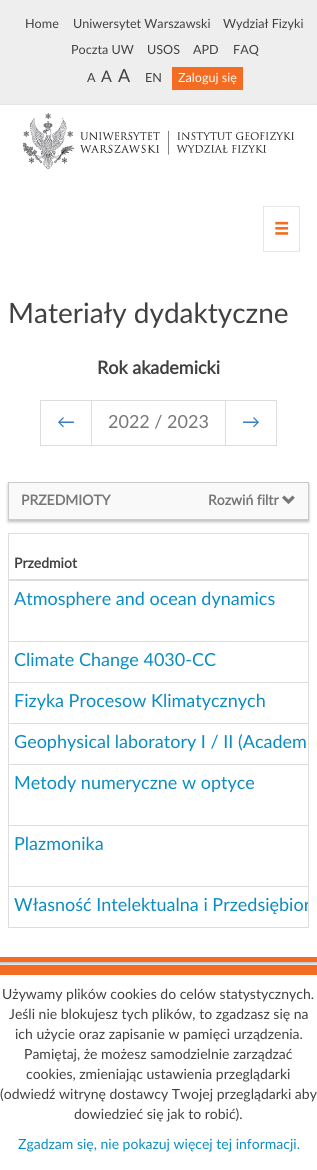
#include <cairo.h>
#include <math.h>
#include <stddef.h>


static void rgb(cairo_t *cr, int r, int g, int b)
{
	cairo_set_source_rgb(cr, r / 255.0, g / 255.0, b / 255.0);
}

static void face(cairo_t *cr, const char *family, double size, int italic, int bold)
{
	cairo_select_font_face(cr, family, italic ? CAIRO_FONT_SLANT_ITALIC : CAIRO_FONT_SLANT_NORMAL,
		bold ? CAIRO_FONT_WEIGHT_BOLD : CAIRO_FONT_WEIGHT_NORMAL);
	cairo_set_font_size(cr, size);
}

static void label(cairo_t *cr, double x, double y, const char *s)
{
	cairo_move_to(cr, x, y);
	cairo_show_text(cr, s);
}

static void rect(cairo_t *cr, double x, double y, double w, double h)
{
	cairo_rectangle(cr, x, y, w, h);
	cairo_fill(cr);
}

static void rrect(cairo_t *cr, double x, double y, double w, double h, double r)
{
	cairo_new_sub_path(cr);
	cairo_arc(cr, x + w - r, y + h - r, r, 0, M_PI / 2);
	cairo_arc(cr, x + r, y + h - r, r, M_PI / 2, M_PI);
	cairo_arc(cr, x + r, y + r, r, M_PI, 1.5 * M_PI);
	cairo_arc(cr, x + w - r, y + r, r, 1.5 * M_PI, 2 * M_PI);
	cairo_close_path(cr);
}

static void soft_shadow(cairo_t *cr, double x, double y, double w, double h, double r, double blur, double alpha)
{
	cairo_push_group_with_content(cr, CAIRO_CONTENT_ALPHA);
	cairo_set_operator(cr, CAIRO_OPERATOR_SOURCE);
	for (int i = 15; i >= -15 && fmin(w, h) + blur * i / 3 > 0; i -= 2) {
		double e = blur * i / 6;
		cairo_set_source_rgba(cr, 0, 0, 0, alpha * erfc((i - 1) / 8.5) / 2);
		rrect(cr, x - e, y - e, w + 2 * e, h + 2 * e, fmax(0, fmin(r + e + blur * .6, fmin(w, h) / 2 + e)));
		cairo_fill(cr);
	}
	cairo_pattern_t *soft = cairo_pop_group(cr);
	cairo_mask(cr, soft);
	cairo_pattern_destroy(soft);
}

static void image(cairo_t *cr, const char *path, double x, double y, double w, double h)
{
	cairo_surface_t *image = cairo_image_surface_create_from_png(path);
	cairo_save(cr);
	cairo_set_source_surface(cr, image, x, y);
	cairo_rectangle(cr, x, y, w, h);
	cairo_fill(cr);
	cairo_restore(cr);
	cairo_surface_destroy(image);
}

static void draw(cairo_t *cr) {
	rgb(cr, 239, 238, 238);
	cairo_paint(cr);
	face(cr, "Lato", 12.6, 0, 0);
	rgb(cr, 65, 65, 65);
	label(cr, 25, 28, "Home");
	label(cr, 73, 28, "Uniwersytet Warszawski");
	label(cr, 223, 28, "Wydział Fizyki");
	label(cr, 71, 54, "Poczta UW");
	label(cr, 147, 54, "USOS");
	label(cr, 193, 54, "APD");
	label(cr, 233, 54, "FAQ");
	label(cr, 87, 82, "A");
	face(cr, "Lato", 16, 0, 0);
	label(cr, 101, 82, "A");
	face(cr, "Lato", 18, 0, 0);
	label(cr, 118, 82, "A");
	face(cr, "Lato", 12.6, 0, 0);
	label(cr, 145, 82, "EN");
	rgb(cr, 243, 108, 33);
	rect(cr, 172, 67, 71, 23);
	rgb(cr, 255, 255, 255);
	label(cr, 178, 82, "Zaloguj się");
	rgb(cr, 0, 0, 0);
	soft_shadow(cr, 0, 106, 317, 857, 0, 1.5, 0.25);
	rgb(cr, 255, 255, 255);
	rect(cr, 0, 105, 317, 852);
	rgb(cr, 243, 108, 33);
	rect(cr, 0, 957, 317, 5);
	image(cr, "image0.png", 23, 113, 271, 56);
	cairo_rectangle(cr, 263.5, 206.5, 36, 45);
	rgb(cr, 231, 231, 231);
	cairo_set_line_width(cr, 1);
	cairo_stroke(cr);
	image(cr, "image1.png", 275, 221, 14, 14);
	face(cr, "Lato", 28, 0, 0);
	rgb(cr, 65, 65, 65);
	label(cr, 8, 323, "Materiały dydaktyczne");
	face(cr, "Lato", 18, 0, 1);
	label(cr, 97, 374, "Rok akademicki");
	cairo_rectangle(cr, 40.5, 400.5, 51, 45);
	rgb(cr, 221, 221, 221);
	cairo_stroke(cr);
	face(cr, "Lato", 18, 0, 0);
	rgb(cr, 51, 122, 183);
	label(cr, 57, 428, "←");
	cairo_rectangle(cr, 91.5, 400.5, 134, 45);
	rgb(cr, 221, 221, 221);
	cairo_stroke(cr);
	rgb(cr, 119, 119, 119);
	label(cr, 108, 428, "2022 / 2023");
	cairo_rectangle(cr, 225.5, 400.5, 51, 45);
	rgb(cr, 221, 221, 221);
	cairo_stroke(cr);
	rgb(cr, 51, 122, 183);
	label(cr, 242, 428, "→");
	rgb(cr, 0, 0, 0);
	soft_shadow(cr, 8, 484, 301, 38, 0, 1.5, 0.25);
	rgb(cr, 249, 249, 249);
	cairo_rectangle(cr, 8.5, 482.5, 300, 37);
	cairo_fill_preserve(cr);
	rgb(cr, 202, 202, 202);
	cairo_stroke(cr);
	face(cr, "Lato", 14, 0, 1);
	rgb(cr, 119, 119, 119);
	label(cr, 21, 505, "PRZEDMIOTY");
	label(cr, 208, 505, "Rozwiń filtr");
	image(cr, "image2.png", 282, 495, 13, 10);
	cairo_rectangle(cr, 8.5, 533.5, 300, 394);
	rgb(cr, 221, 221, 221);
	cairo_stroke(cr);
	rect(cr, 9, 579, 299, 2);
	rgb(cr, 65, 65, 65);
	label(cr, 14, 568, "Przedmiot");
	face(cr, "Lato", 18, 0, 0);
	rgb(cr, 11, 141, 193);
	label(cr, 14, 605, "Atmosphere and ocean dynamics");
	rgb(cr, 221, 221, 221);
	rect(cr, 9, 641, 299, 1);
	rgb(cr, 11, 141, 193);
	label(cr, 14, 666, "Climate Change 4030-CC");
	rgb(cr, 221, 221, 221);
	rect(cr, 9, 682, 299, 1);
	rgb(cr, 11, 141, 193);
	label(cr, 14, 707, "Fizyka Procesow Klimatycznych");
	rgb(cr, 221, 221, 221);
	rect(cr, 9, 723, 299, 1);
	rgb(cr, 11, 141, 193);
	label(cr, 14, 748, "Geophysical laboratory I / II (Academ");
	rgb(cr, 221, 221, 221);
	rect(cr, 9, 764, 299, 1);
	rgb(cr, 11, 141, 193);
	label(cr, 14, 789, "Metody numeryczne w optyce");
	rgb(cr, 221, 221, 221);
	rect(cr, 9, 825, 299, 1);
	rgb(cr, 11, 141, 193);
	label(cr, 14, 850, "Plazmonika");
	rgb(cr, 221, 221, 221);
	rect(cr, 9, 886, 299, 1);
	cairo_save(cr);
	cairo_rectangle(cr, 9, 534, 299, 393);
	cairo_clip(cr);
	rgb(cr, 11, 141, 193);
	label(cr, 14, 911, "Własność Intelektualna i Przedsiębior");
	cairo_restore(cr);
	rgb(cr, 255, 255, 255);
	rect(cr, 0, 975, 317, 195);
	rgb(cr, 243, 108, 33);
	rect(cr, 0, 965, 317, 10);
	face(cr, "Lato", 14, 0, 0);
	rgb(cr, 65, 65, 65);
	label(cr, 2, 999, "Używamy plików cookies do celów statystycznych.");
	label(cr, 9, 1019, "Jeśli nie blokujesz tych plików, to zgadzasz się na");
	label(cr, 15, 1039, "ich użycie oraz zapisanie w pamięci urządzenia.");
	label(cr, 24, 1059, "Pamiętaj, że możesz samodzielnie zarządzać");
	label(cr, 26, 1079, "cookies, zmieniając ustawienia przeglądarki");
	label(cr, 0, 1099, "(odwiedź witrynę dostawcy Twojej przeglądarki aby");
	label(cr, 74, 1119, "dowiedzieć się jak to robić).");
	rgb(cr, 11, 141, 193);
	label(cr, 18, 1149, "Zgadzam się, nie pokazuj więcej tej informacji.");
}

int main(void) {
	cairo_surface_t *surface = cairo_image_surface_create(CAIRO_FORMAT_RGB24, 317, 1170);
	cairo_t *cr = cairo_create(surface);
	cairo_font_options_t *options = cairo_font_options_create();
	cairo_font_options_set_hint_metrics(options, CAIRO_HINT_METRICS_OFF);
	cairo_font_options_set_hint_style(options, CAIRO_HINT_STYLE_NONE);
	cairo_set_font_options(cr, options);
	cairo_set_miter_limit(cr, 4);
	draw(cr);
	cairo_surface_write_to_png(surface, "render.png");
	cairo_font_options_destroy(options);
	cairo_destroy(cr);
	cairo_surface_destroy(surface);
	return 0;
}
